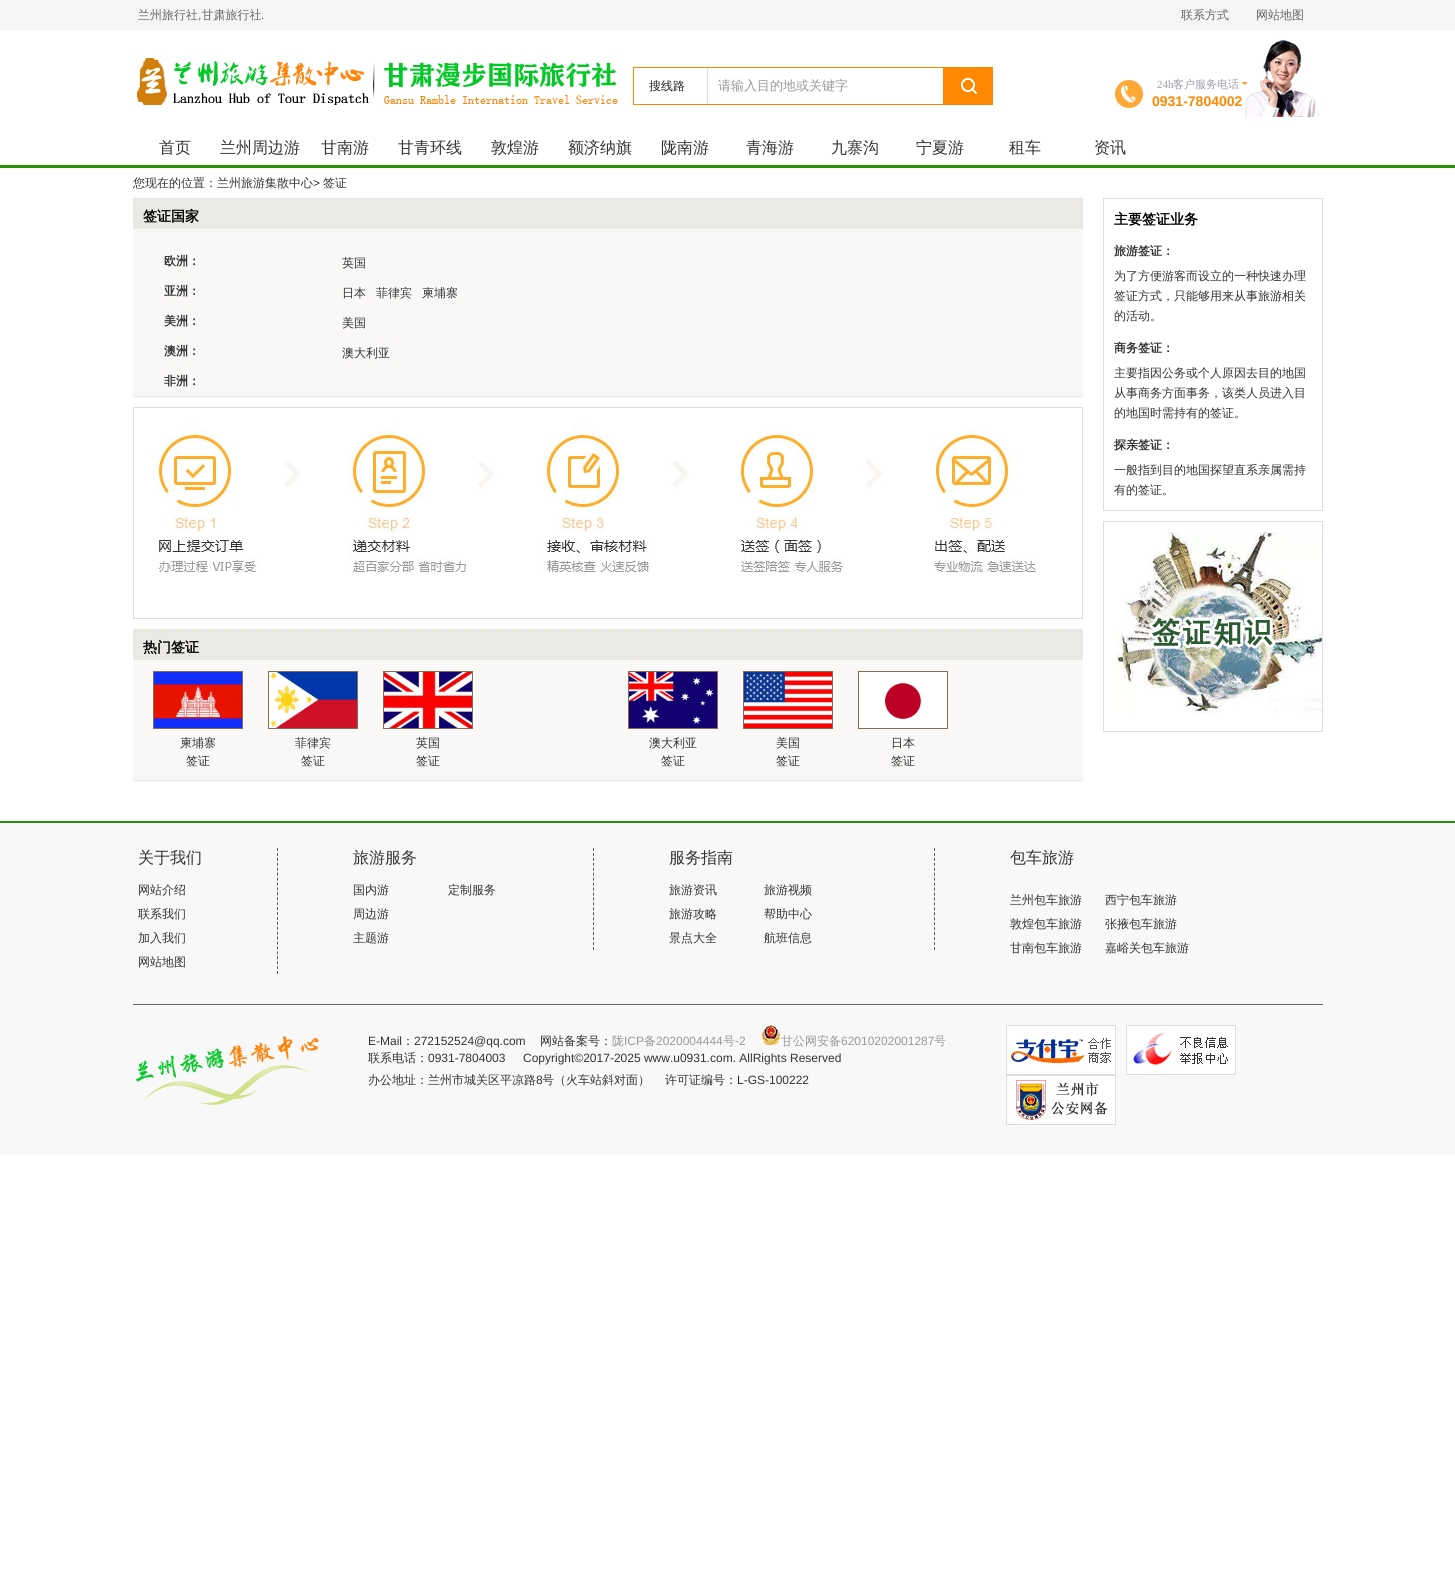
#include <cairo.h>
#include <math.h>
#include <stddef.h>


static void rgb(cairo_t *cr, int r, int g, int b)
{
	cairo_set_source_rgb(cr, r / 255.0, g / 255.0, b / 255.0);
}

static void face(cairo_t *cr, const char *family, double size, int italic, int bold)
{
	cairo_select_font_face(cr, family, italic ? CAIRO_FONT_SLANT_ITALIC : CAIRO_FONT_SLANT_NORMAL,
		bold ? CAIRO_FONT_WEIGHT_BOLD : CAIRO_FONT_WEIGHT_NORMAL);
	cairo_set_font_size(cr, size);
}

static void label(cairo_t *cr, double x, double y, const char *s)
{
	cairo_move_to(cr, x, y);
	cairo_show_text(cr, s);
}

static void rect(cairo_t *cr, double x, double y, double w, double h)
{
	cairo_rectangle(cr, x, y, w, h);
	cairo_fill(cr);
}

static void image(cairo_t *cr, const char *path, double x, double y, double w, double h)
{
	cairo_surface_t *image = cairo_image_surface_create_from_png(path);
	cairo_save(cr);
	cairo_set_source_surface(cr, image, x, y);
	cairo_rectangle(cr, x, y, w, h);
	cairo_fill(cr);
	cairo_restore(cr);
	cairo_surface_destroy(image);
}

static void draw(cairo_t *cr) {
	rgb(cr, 255, 255, 255);
	cairo_paint(cr);
	rgb(cr, 245, 245, 245);
	rect(cr, 0, 0, 1455, 30);
	face(cr, "WenQuanYi Zen Hei Medium", 12, 0, 0);
	rgb(cr, 102, 102, 102);
	label(cr, 138, 19, "兰州旅行社 甘肃旅行社");
	face(cr, "Liberation Sans", 12, 0, 0);
	label(cr, 198, 19, ",");
	label(cr, 261, 19, ".");
	face(cr, "WenQuanYi Zen Hei Medium", 12, 0, 0);
	label(cr, 1181, 19, "联系方式");
	label(cr, 1256, 19, "网站地图");
	image(cr, "image0.png", 137, 58, 481, 47);
	rgb(cr, 255, 136, 0);
	rect(cr, 633, 67, 360, 1);
	rect(cr, 992, 67, 1, 38);
	rect(cr, 633, 104, 360, 1);
	rgb(cr, 221, 221, 221);
	rect(cr, 707, 68, 1, 36);
	rgb(cr, 255, 136, 0);
	rect(cr, 633, 68, 1, 36);
	rgb(cr, 34, 34, 34);
	label(cr, 649, 90, "搜线路");
	face(cr, "WenQuanYi Zen Hei Medium", 13, 0, 0);
	rgb(cr, 153, 153, 153);
	label(cr, 718, 90, "请输入目的地或关键字");
	image(cr, "image1.png", 943, 68, 49, 36);
	image(cr, "image2.png", 1115, 80, 28, 28);
	face(cr, "Liberation Serif", 11, 0, 0);
	rgb(cr, 156, 155, 165);
	label(cr, 1157, 88, "24h");
	face(cr, "WenQuanYi Zen Hei Medium", 11, 0, 0);
	label(cr, 1173, 88, "客户服务电话");
	image(cr, "image3.png", 1241, 82, 7, 3);
	image(cr, "image4.png", 1245, 40, 74, 77);
	face(cr, "Liberation Sans", 14, 0, 1);
	rgb(cr, 255, 136, 0);
	label(cr, 1152, 106, "0931-7804002");
	rgb(cr, 43, 143, 8);
	rect(cr, 0, 165, 1455, 3);
	face(cr, "WenQuanYi Zen Hei Medium", 16, 0, 0);
	rgb(cr, 51, 51, 51);
	label(cr, 159, 153, "首页");
	label(cr, 220, 153, "兰州周边游");
	label(cr, 321, 153, "甘南游");
	label(cr, 398, 153, "甘青环线");
	label(cr, 491, 153, "敦煌游");
	label(cr, 568, 153, "额济纳旗");
	label(cr, 661, 153, "陇南游");
	label(cr, 746, 153, "青海游");
	label(cr, 831, 153, "九寨沟");
	label(cr, 916, 153, "宁夏游");
	label(cr, 1009, 153, "租车");
	label(cr, 1094, 153, "资讯");
	face(cr, "WenQuanYi Zen Hei Medium", 12, 0, 0);
	label(cr, 133, 187, "您现在的位置：兰州旅游集散中心");
	face(cr, "Liberation Sans", 12, 0, 0);
	label(cr, 313, 187, ">");
	face(cr, "WenQuanYi Zen Hei Medium", 12, 0, 0);
	label(cr, 323, 187, "签证");
	rgb(cr, 249, 248, 247);
	rect(cr, 133, 229, 950, 167);
	rgb(cr, 235, 233, 228);
	rect(cr, 133, 198, 950, 31);
	face(cr, "WenQuanYi Zen Hei", 14, 0, 1);
	rgb(cr, 0, 0, 0);
	label(cr, 143, 221, "签证国家");
	rgb(cr, 235, 233, 228);
	rect(cr, 133, 396, 950, 1);
	face(cr, "WenQuanYi Zen Hei", 12, 0, 1);
	rgb(cr, 51, 51, 51);
	label(cr, 164, 265, "欧洲：");
	face(cr, "WenQuanYi Zen Hei Medium", 12, 0, 0);
	label(cr, 342, 267, "英国");
	face(cr, "WenQuanYi Zen Hei", 12, 0, 1);
	label(cr, 164, 295, "亚洲：");
	face(cr, "WenQuanYi Zen Hei Medium", 12, 0, 0);
	label(cr, 342, 297, "日本");
	label(cr, 376, 297, "菲律宾");
	label(cr, 422, 297, "柬埔寨");
	face(cr, "WenQuanYi Zen Hei", 12, 0, 1);
	label(cr, 164, 325, "美洲：");
	face(cr, "WenQuanYi Zen Hei Medium", 12, 0, 0);
	label(cr, 342, 327, "美国");
	face(cr, "WenQuanYi Zen Hei", 12, 0, 1);
	label(cr, 164, 355, "澳洲：");
	face(cr, "WenQuanYi Zen Hei Medium", 12, 0, 0);
	label(cr, 342, 357, "澳大利亚");
	face(cr, "WenQuanYi Zen Hei", 12, 0, 1);
	label(cr, 164, 385, "非洲：");
	cairo_rectangle(cr, 133.5, 407.5, 949, 211);
	rgb(cr, 221, 221, 221);
	cairo_set_line_width(cr, 1);
	cairo_stroke(cr);
	image(cr, "image5.png", 157, 428, 879, 144);
	rgb(cr, 249, 248, 247);
	rect(cr, 133, 660, 950, 120);
	rgb(cr, 235, 233, 228);
	rect(cr, 133, 629, 950, 31);
	face(cr, "WenQuanYi Zen Hei", 14, 0, 1);
	rgb(cr, 0, 0, 0);
	label(cr, 143, 652, "热门签证");
	rgb(cr, 235, 233, 228);
	rect(cr, 133, 780, 950, 1);
	cairo_rectangle(cr, 153.5, 671.5, 89, 57);
	rgb(cr, 129, 110, 89);
	cairo_stroke(cr);
	image(cr, "image6.png", 154, 672, 88, 56);
	face(cr, "WenQuanYi Zen Hei Medium", 12, 0, 0);
	rgb(cr, 51, 51, 51);
	label(cr, 180, 747, "柬埔寨");
	label(cr, 186, 765, "签证");
	cairo_rectangle(cr, 268.5, 671.5, 89, 57);
	rgb(cr, 129, 110, 89);
	cairo_stroke(cr);
	image(cr, "image7.png", 269, 672, 88, 56);
	rgb(cr, 51, 51, 51);
	label(cr, 295, 747, "菲律宾");
	label(cr, 301, 765, "签证");
	cairo_rectangle(cr, 383.5, 671.5, 89, 57);
	rgb(cr, 129, 110, 89);
	cairo_stroke(cr);
	image(cr, "image8.png", 384, 672, 88, 56);
	rgb(cr, 51, 51, 51);
	label(cr, 416, 747, "英国");
	label(cr, 416, 765, "签证");
	cairo_rectangle(cr, 628.5, 671.5, 89, 57);
	rgb(cr, 129, 110, 89);
	cairo_stroke(cr);
	image(cr, "image9.png", 629, 672, 88, 56);
	rgb(cr, 51, 51, 51);
	label(cr, 649, 747, "澳大利亚");
	label(cr, 661, 765, "签证");
	cairo_rectangle(cr, 743.5, 671.5, 89, 57);
	rgb(cr, 129, 110, 89);
	cairo_stroke(cr);
	image(cr, "image10.png", 744, 672, 88, 56);
	rgb(cr, 51, 51, 51);
	label(cr, 776, 747, "美国");
	label(cr, 776, 765, "签证");
	cairo_rectangle(cr, 858.5, 671.5, 89, 57);
	rgb(cr, 129, 110, 89);
	cairo_stroke(cr);
	image(cr, "image11.png", 859, 672, 88, 56);
	rgb(cr, 51, 51, 51);
	label(cr, 891, 747, "日本");
	label(cr, 891, 765, "签证");
	cairo_rectangle(cr, 1103.5, 198.5, 219, 312);
	rgb(cr, 223, 223, 223);
	cairo_stroke(cr);
	face(cr, "WenQuanYi Zen Hei", 14, 0, 1);
	rgb(cr, 0, 0, 0);
	label(cr, 1114, 224, "主要签证业务");
	face(cr, "WenQuanYi Zen Hei", 12, 0, 1);
	rgb(cr, 51, 51, 51);
	label(cr, 1114, 255, "旅游签证：");
	face(cr, "WenQuanYi Zen Hei Medium", 12, 0, 0);
	label(cr, 1114, 280, "为了方便游客而设立的一种快速办理");
	label(cr, 1114, 300, "签证方式，只能够用来从事旅游相关");
	label(cr, 1114, 320, "的活动。");
	face(cr, "WenQuanYi Zen Hei", 12, 0, 1);
	label(cr, 1114, 352, "商务签证：");
	face(cr, "WenQuanYi Zen Hei Medium", 12, 0, 0);
	label(cr, 1114, 377, "主要指因公务或个人原因去目的地国");
	label(cr, 1114, 397, "从事商务方面事务，该类人员进入目");
	label(cr, 1114, 417, "的地国时需持有的签证。");
	face(cr, "WenQuanYi Zen Hei", 12, 0, 1);
	label(cr, 1114, 449, "探亲签证：");
	face(cr, "WenQuanYi Zen Hei Medium", 12, 0, 0);
	label(cr, 1114, 474, "一般指到目的地国探望直系亲属需持");
	label(cr, 1114, 494, "有的签证。");
	cairo_rectangle(cr, 1103.5, 521.5, 219, 210);
	rgb(cr, 223, 223, 223);
	cairo_stroke(cr);
	image(cr, "image12.png", 1114, 532, 208, 183);
	rgb(cr, 248, 248, 248);
	rect(cr, 0, 823, 1455, 332);
	rgb(cr, 43, 143, 8);
	rect(cr, 0, 821, 1455, 2);
	rgb(cr, 102, 102, 102);
	rect(cr, 133, 1004, 1190, 1);
	cairo_new_path(cr);
	cairo_move_to(cr, 277.5, 848);
	cairo_line_to(cr, 277.5, 974);
	rgb(cr, 90, 90, 90);
	cairo_set_dash(cr, (double[]){3, 1.92}, 2, 0);
	cairo_stroke(cr);
	face(cr, "WenQuanYi Zen Hei Medium", 16, 0, 0);
	rgb(cr, 51, 51, 51);
	label(cr, 138, 863, "关于我们");
	face(cr, "WenQuanYi Zen Hei Medium", 12, 0, 0);
	label(cr, 138, 894, "网站介绍");
	label(cr, 138, 918, "联系我们");
	label(cr, 138, 942, "加入我们");
	label(cr, 138, 966, "网站地图");
	cairo_new_path(cr);
	cairo_move_to(cr, 593.5, 848);
	cairo_line_to(cr, 593.5, 950);
	rgb(cr, 90, 90, 90);
	cairo_set_dash(cr, (double[]){3, 1.95}, 2, 0);
	cairo_stroke(cr);
	face(cr, "WenQuanYi Zen Hei Medium", 16, 0, 0);
	rgb(cr, 51, 51, 51);
	label(cr, 353, 863, "旅游服务");
	face(cr, "WenQuanYi Zen Hei Medium", 12, 0, 0);
	label(cr, 353, 894, "国内游");
	label(cr, 353, 918, "周边游");
	label(cr, 353, 942, "主题游");
	label(cr, 448, 894, "定制服务");
	cairo_new_path(cr);
	cairo_move_to(cr, 934.5, 848);
	cairo_line_to(cr, 934.5, 950);
	rgb(cr, 90, 90, 90);
	cairo_stroke(cr);
	face(cr, "WenQuanYi Zen Hei Medium", 16, 0, 0);
	rgb(cr, 51, 51, 51);
	label(cr, 669, 863, "服务指南");
	face(cr, "WenQuanYi Zen Hei Medium", 12, 0, 0);
	label(cr, 669, 894, "旅游资讯");
	label(cr, 669, 918, "旅游攻略");
	label(cr, 669, 942, "景点大全");
	label(cr, 764, 894, "旅游视频");
	label(cr, 764, 918, "帮助中心");
	label(cr, 764, 942, "航班信息");
	face(cr, "WenQuanYi Zen Hei Medium", 16, 0, 0);
	label(cr, 1010, 863, "包车旅游");
	face(cr, "WenQuanYi Zen Hei Medium", 12, 0, 0);
	label(cr, 1010, 904, "兰州包车旅游");
	label(cr, 1010, 928, "敦煌包车旅游");
	label(cr, 1010, 952, "甘南包车旅游");
	label(cr, 1105, 904, "西宁包车旅游");
	label(cr, 1105, 928, "张掖包车旅游");
	label(cr, 1105, 952, "嘉峪关包车旅游");
	image(cr, "image13.png", 136, 1036, 183, 69);
	face(cr, "Liberation Sans", 12, 0, 0);
	label(cr, 368, 1045, "E-Mail");
	face(cr, "WenQuanYi Zen Hei Medium", 12, 0, 0);
	label(cr, 402, 1045, "：");
	face(cr, "Liberation Sans", 12, 0, 0);
	label(cr, 414, 1045, "272152524@qq.com");
	face(cr, "WenQuanYi Zen Hei Medium", 12, 0, 0);
	label(cr, 540, 1045, "网站备案号：");
	rgb(cr, 153, 153, 153);
	label(cr, 612, 1045, "陇");
	face(cr, "Liberation Sans", 12, 0, 0);
	label(cr, 624, 1045, "ICP");
	face(cr, "WenQuanYi Zen Hei Medium", 12, 0, 0);
	label(cr, 644, 1045, "备");
	face(cr, "Liberation Sans", 12, 0, 0);
	label(cr, 656, 1045, "2020004444");
	face(cr, "WenQuanYi Zen Hei Medium", 12, 0, 0);
	label(cr, 723, 1045, "号");
	face(cr, "Liberation Sans", 12, 0, 0);
	label(cr, 735, 1045, "-2");
	image(cr, "image14.png", 762, 1025, 18, 20);
	face(cr, "WenQuanYi Zen Hei Medium", 12, 0, 0);
	label(cr, 781, 1045, "甘公网安备");
	face(cr, "Liberation Sans", 12, 0, 0);
	label(cr, 841, 1045, "62010202001287");
	face(cr, "WenQuanYi Zen Hei Medium", 12, 0, 0);
	label(cr, 934, 1045, "号");
	rgb(cr, 51, 51, 51);
	label(cr, 368, 1062, "联系电话：");
	face(cr, "Liberation Sans", 12, 0, 0);
	label(cr, 428, 1062, "0931-7804003");
	label(cr, 523, 1062, "Copyright©2017-2025 www.u0931.com. AllRights Reserved");
	face(cr, "WenQuanYi Zen Hei Medium", 12, 0, 0);
	label(cr, 368, 1084, "办公地址：兰州市城关区平凉路");
	face(cr, "Liberation Sans", 12, 0, 0);
	label(cr, 536, 1084, "8");
	face(cr, "WenQuanYi Zen Hei Medium", 12, 0, 0);
	label(cr, 542, 1084, "号（火车站斜对面）");
	label(cr, 665, 1084, "许可证编号：");
	face(cr, "Liberation Sans", 12, 0, 0);
	label(cr, 737, 1084, "L-GS-100222");
	image(cr, "image15.png", 1006, 1025, 110, 50);
	image(cr, "image16.png", 1126, 1025, 110, 50);
	image(cr, "image17.png", 1006, 1075, 110, 50);
}

int main(void) {
	cairo_surface_t *surface = cairo_image_surface_create(CAIRO_FORMAT_RGB24, 1455, 1582);
	cairo_t *cr = cairo_create(surface);
	cairo_font_options_t *options = cairo_font_options_create();
	cairo_font_options_set_hint_metrics(options, CAIRO_HINT_METRICS_OFF);
	cairo_font_options_set_hint_style(options, CAIRO_HINT_STYLE_NONE);
	cairo_set_font_options(cr, options);
	cairo_set_miter_limit(cr, 4);
	draw(cr);
	cairo_surface_write_to_png(surface, "render.png");
	cairo_font_options_destroy(options);
	cairo_destroy(cr);
	cairo_surface_destroy(surface);
	return 0;
}
